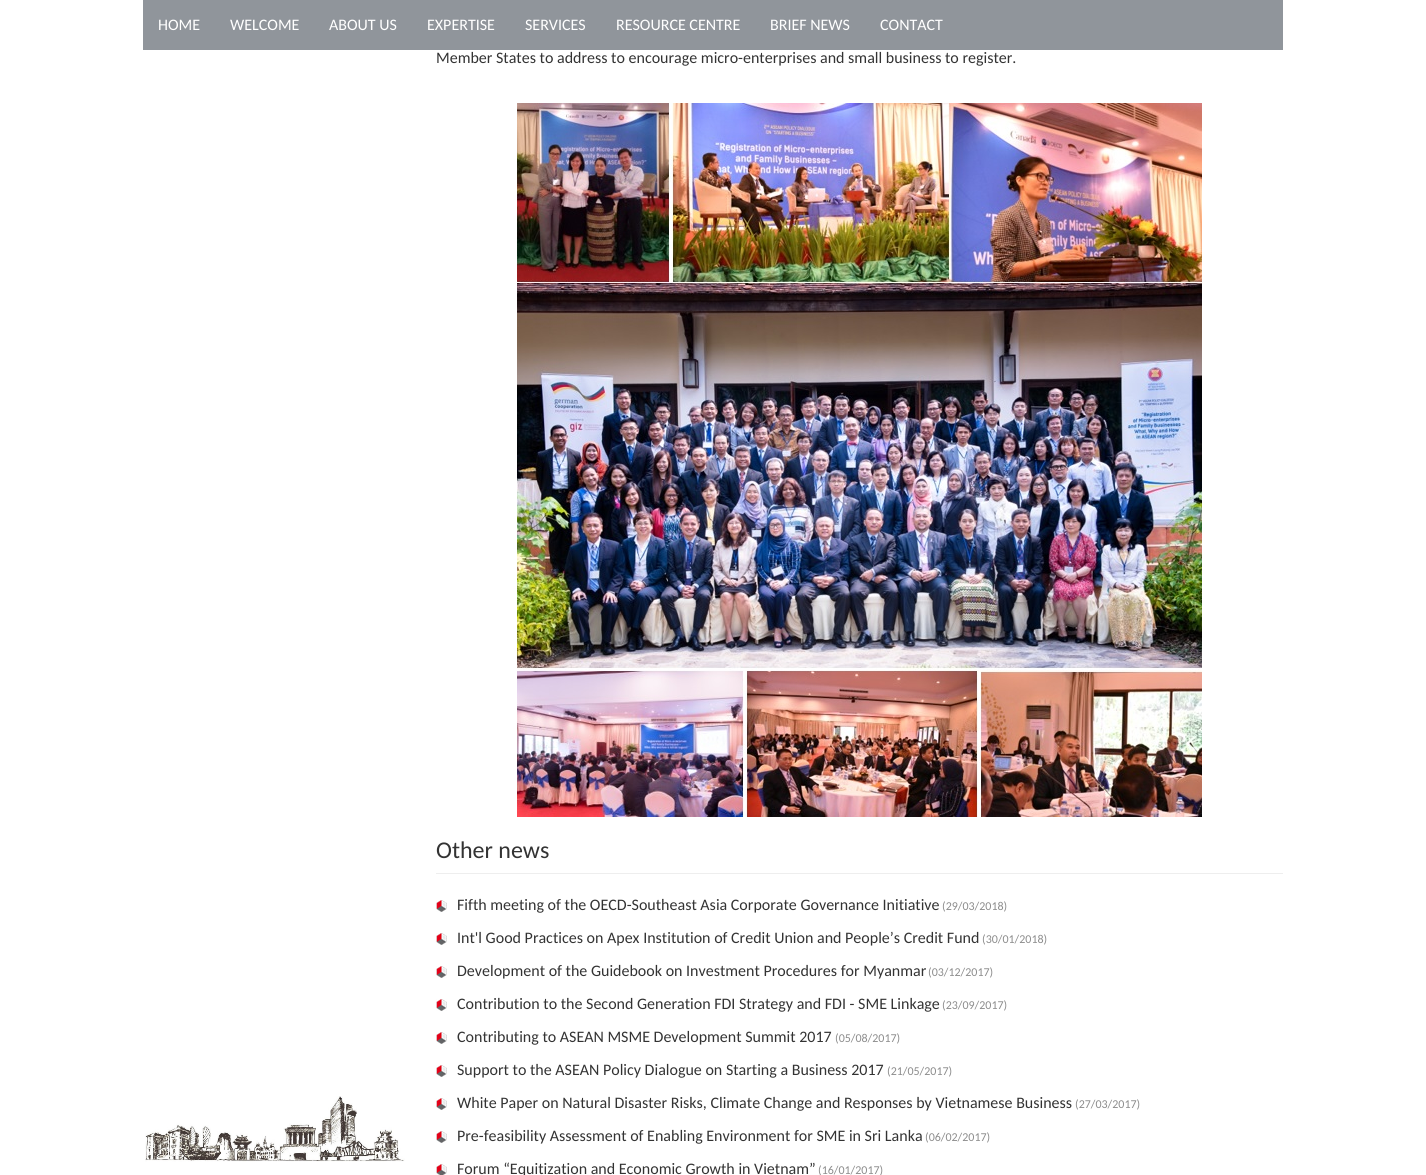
#include <cairo.h>
#include <math.h>
#include <stddef.h>


static void rgb(cairo_t *cr, int r, int g, int b)
{
	cairo_set_source_rgb(cr, r / 255.0, g / 255.0, b / 255.0);
}

static void face(cairo_t *cr, const char *family, double size, int italic, int bold)
{
	cairo_select_font_face(cr, family, italic ? CAIRO_FONT_SLANT_ITALIC : CAIRO_FONT_SLANT_NORMAL,
		bold ? CAIRO_FONT_WEIGHT_BOLD : CAIRO_FONT_WEIGHT_NORMAL);
	cairo_set_font_size(cr, size);
}

static void label(cairo_t *cr, double x, double y, const char *s)
{
	cairo_move_to(cr, x, y);
	cairo_show_text(cr, s);
}

static void rect(cairo_t *cr, double x, double y, double w, double h)
{
	cairo_rectangle(cr, x, y, w, h);
	cairo_fill(cr);
}

static void image(cairo_t *cr, const char *path, double x, double y, double w, double h)
{
	cairo_surface_t *image = cairo_image_surface_create_from_png(path);
	cairo_save(cr);
	cairo_set_source_surface(cr, image, x, y);
	cairo_rectangle(cr, x, y, w, h);
	cairo_fill(cr);
	cairo_restore(cr);
	cairo_surface_destroy(image);
}

static void draw(cairo_t *cr) {
	rgb(cr, 255, 255, 255);
	cairo_paint(cr);
	rgb(cr, 144, 149, 155);
	rect(cr, 143, 0, 1140, 50);
	face(cr, "Carlito", 16, 0, 0);
	rgb(cr, 255, 255, 255);
	label(cr, 158, 30, "HOME");
	label(cr, 230, 30, "WELCOME");
	label(cr, 329, 30, "ABOUT US");
	label(cr, 427, 30, "EXPERTISE");
	label(cr, 525, 30, "SERVICES");
	label(cr, 616, 30, "RESOURCE CENTRE");
	label(cr, 770, 30, "BRIEF NEWS");
	label(cr, 880, 30, "CONTACT");
	image(cr, "image0.png", 145, 1096, 260, 66);
	rgb(cr, 51, 51, 51);
	label(cr, 436, 63, "Member States to address to encourage micro-enterprises and small business to register.");
	image(cr, "image1.png", 517, 103, 685, 714);
	face(cr, "Carlito", 24, 0, 0);
	label(cr, 436, 858, "Other news");
	rgb(cr, 238, 238, 238);
	rect(cr, 436, 873, 847, 1);
	image(cr, "image2.png", 436, 900, 11, 12);
	face(cr, "Carlito", 16, 0, 0);
	rgb(cr, 51, 51, 51);
	label(cr, 457, 910, "Fifth meeting of the OECD-Southeast Asia Corporate Governance Initiative");
	face(cr, "Carlito", 12, 0, 0);
	rgb(cr, 140, 140, 140);
	label(cr, 942, 910, "(29/03/2018)");
	image(cr, "image2.png", 436, 933, 11, 12);
	face(cr, "Carlito", 16, 0, 0);
	rgb(cr, 51, 51, 51);
	label(cr, 457, 943, "Int'l Good Practices on Apex Institution of Credit Union and People’s Credit Fund");
	face(cr, "Carlito", 12, 0, 0);
	rgb(cr, 140, 140, 140);
	label(cr, 982, 943, "(30/01/2018)");
	image(cr, "image2.png", 436, 966, 11, 12);
	face(cr, "Carlito", 16, 0, 0);
	rgb(cr, 51, 51, 51);
	label(cr, 457, 976, "Development of the Guidebook on Investment Procedures for Myanmar");
	face(cr, "Carlito", 12, 0, 0);
	rgb(cr, 140, 140, 140);
	label(cr, 928, 976, "(03/12/2017)");
	image(cr, "image2.png", 436, 999, 11, 12);
	face(cr, "Carlito", 16, 0, 0);
	rgb(cr, 51, 51, 51);
	label(cr, 457, 1009, "Contribution to the Second Generation FDI Strategy and FDI - SME Linkage");
	face(cr, "Carlito", 12, 0, 0);
	rgb(cr, 140, 140, 140);
	label(cr, 942, 1009, "(23/09/2017)");
	image(cr, "image2.png", 436, 1032, 11, 12);
	face(cr, "Carlito", 16, 0, 0);
	rgb(cr, 51, 51, 51);
	label(cr, 457, 1042, "Contributing to ASEAN MSME Development Summit 2017");
	face(cr, "Carlito", 12, 0, 0);
	rgb(cr, 140, 140, 140);
	label(cr, 835, 1042, "(05/08/2017)");
	image(cr, "image2.png", 436, 1065, 11, 12);
	face(cr, "Carlito", 16, 0, 0);
	rgb(cr, 51, 51, 51);
	label(cr, 457, 1075, "Support to the ASEAN Policy Dialogue on Starting a Business 2017");
	face(cr, "Carlito", 12, 0, 0);
	rgb(cr, 140, 140, 140);
	label(cr, 887, 1075, "(21/05/2017)");
	image(cr, "image2.png", 436, 1098, 11, 12);
	face(cr, "Carlito", 16, 0, 0);
	rgb(cr, 51, 51, 51);
	label(cr, 457, 1108, "White Paper on Natural Disaster Risks, Climate Change and Responses by Vietnamese Business");
	face(cr, "Carlito", 12, 0, 0);
	rgb(cr, 140, 140, 140);
	label(cr, 1075, 1108, "(27/03/2017)");
	image(cr, "image2.png", 436, 1131, 11, 12);
	face(cr, "Carlito", 16, 0, 0);
	rgb(cr, 51, 51, 51);
	label(cr, 457, 1141, "Pre-feasibility Assessment of Enabling Environment for SME in Sri Lanka");
	face(cr, "Carlito", 12, 0, 0);
	rgb(cr, 140, 140, 140);
	label(cr, 925, 1141, "(06/02/2017)");
	image(cr, "image3.png", 436, 1164, 11, 11);
	face(cr, "Carlito", 16, 0, 0);
	rgb(cr, 51, 51, 51);
	label(cr, 457, 1174, "Forum “Equitization and Economic Growth in Vietnam”");
	face(cr, "Carlito", 12, 0, 0);
	rgb(cr, 140, 140, 140);
	label(cr, 818, 1174, "(16/01/2017)");
}

int main(void) {
	cairo_surface_t *surface = cairo_image_surface_create(CAIRO_FORMAT_RGB24, 1426, 1175);
	cairo_t *cr = cairo_create(surface);
	cairo_font_options_t *options = cairo_font_options_create();
	cairo_font_options_set_hint_metrics(options, CAIRO_HINT_METRICS_OFF);
	cairo_font_options_set_hint_style(options, CAIRO_HINT_STYLE_NONE);
	cairo_set_font_options(cr, options);
	cairo_set_miter_limit(cr, 4);
	draw(cr);
	cairo_surface_write_to_png(surface, "render.png");
	cairo_font_options_destroy(options);
	cairo_destroy(cr);
	cairo_surface_destroy(surface);
	return 0;
}
